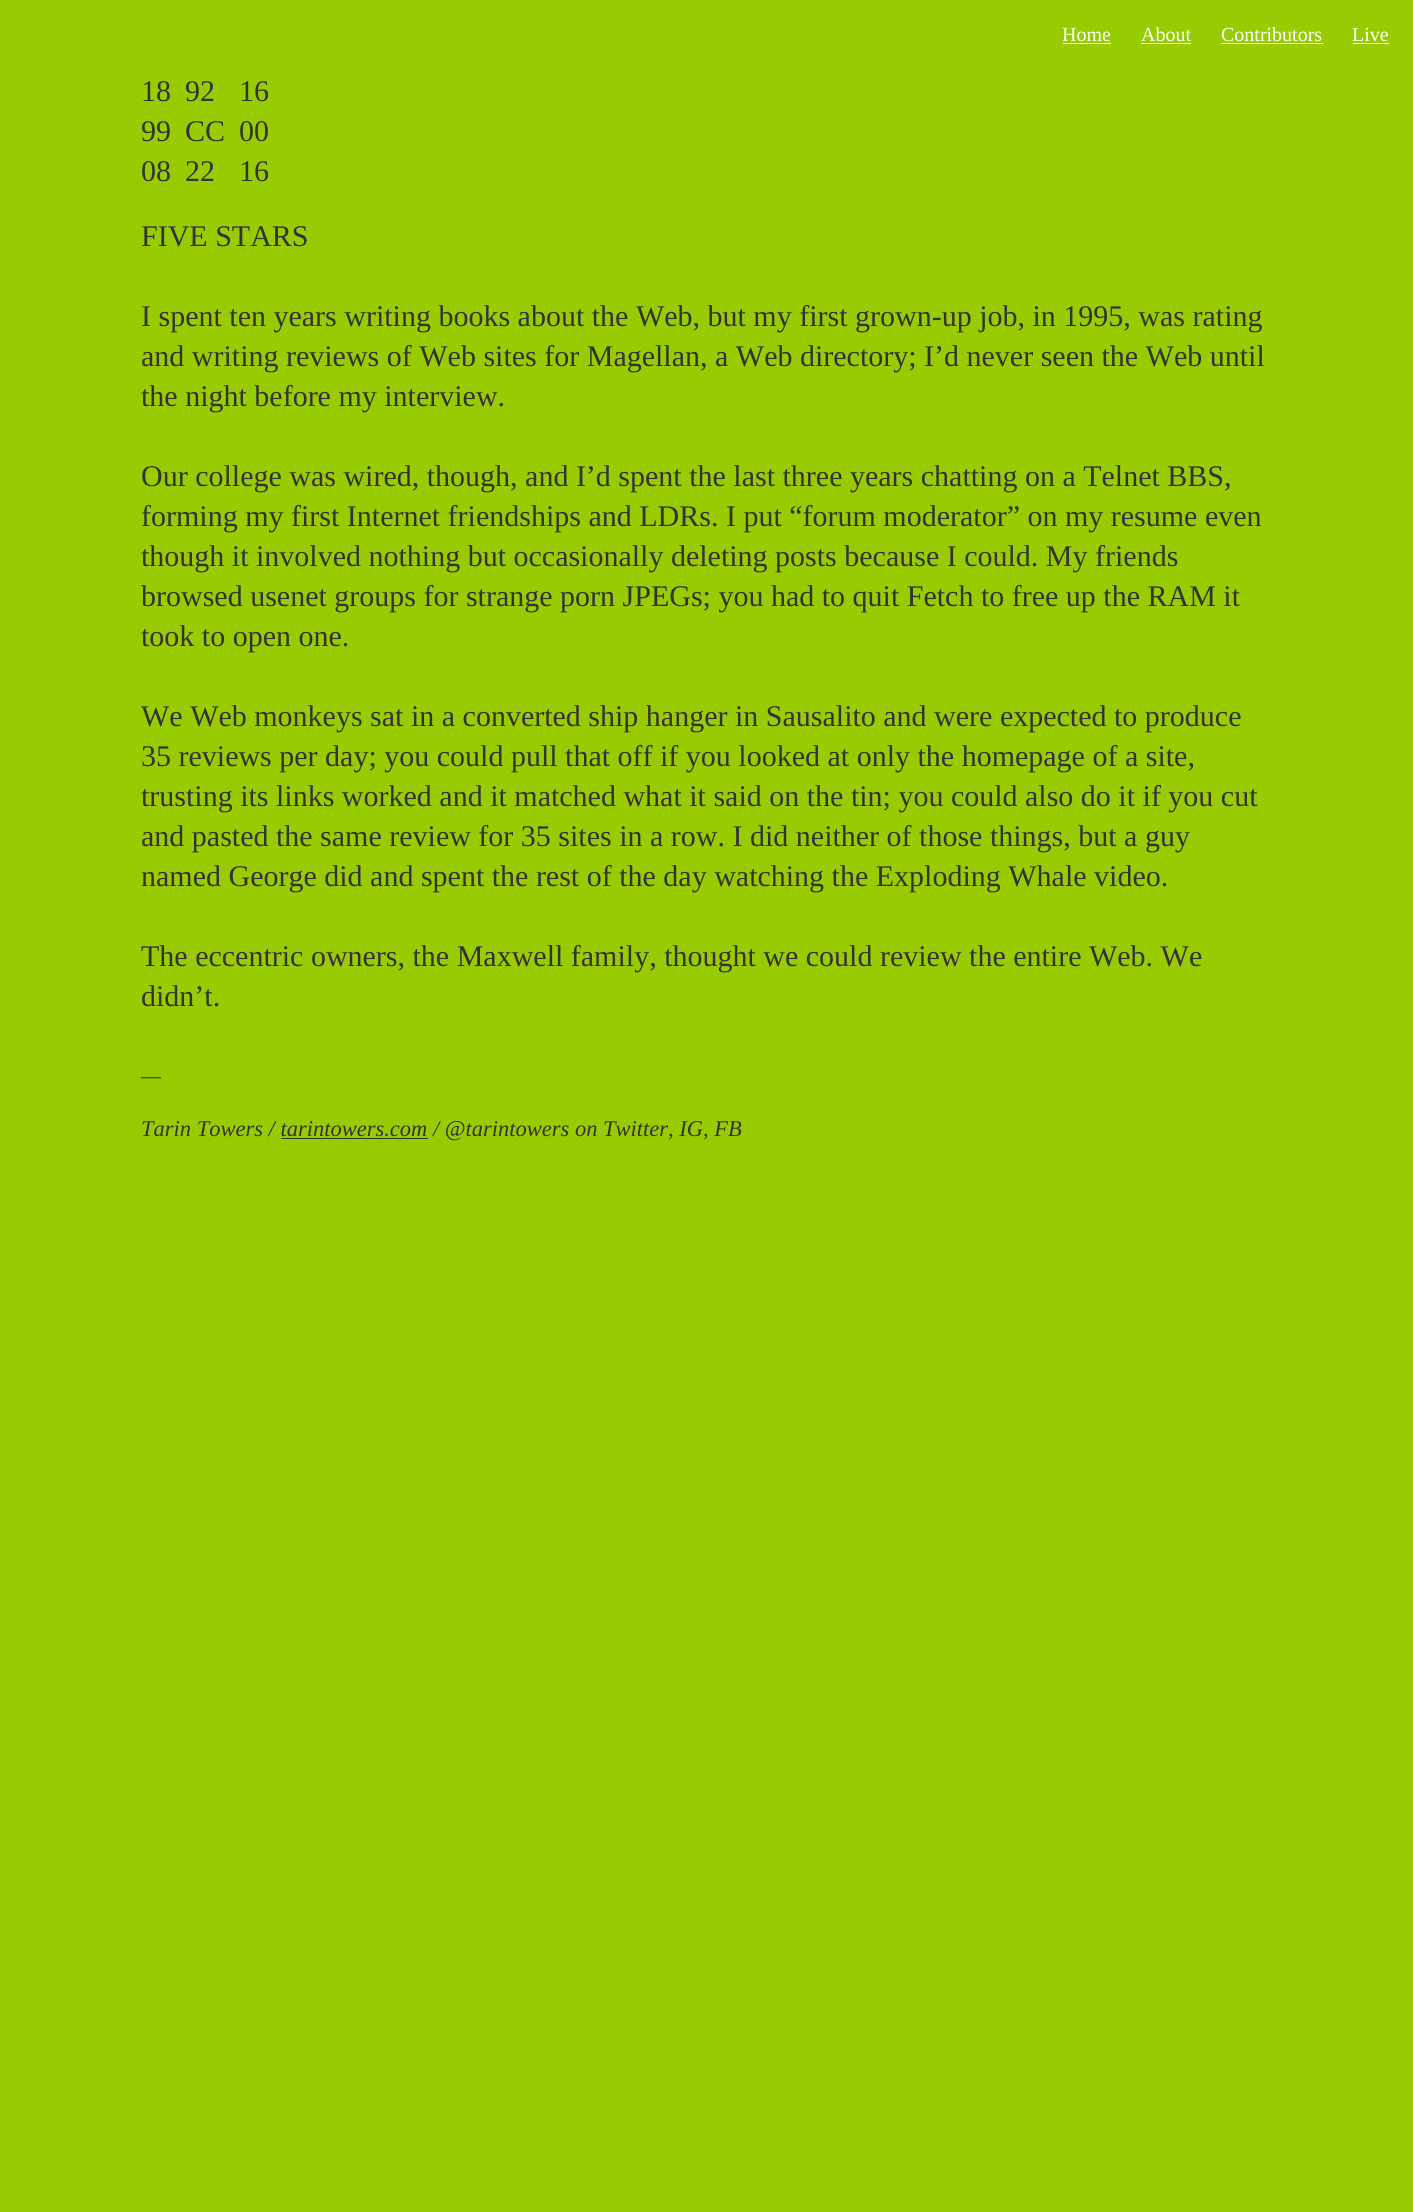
#include <cairo.h>
#include <math.h>
#include <stddef.h>


static void rgb(cairo_t *cr, int r, int g, int b)
{
	cairo_set_source_rgb(cr, r / 255.0, g / 255.0, b / 255.0);
}

static void face(cairo_t *cr, const char *family, double size, int italic, int bold)
{
	cairo_select_font_face(cr, family, italic ? CAIRO_FONT_SLANT_ITALIC : CAIRO_FONT_SLANT_NORMAL,
		bold ? CAIRO_FONT_WEIGHT_BOLD : CAIRO_FONT_WEIGHT_NORMAL);
	cairo_set_font_size(cr, size);
}

static void label(cairo_t *cr, double x, double y, const char *s)
{
	cairo_move_to(cr, x, y);
	cairo_show_text(cr, s);
}

static void rect(cairo_t *cr, double x, double y, double w, double h)
{
	cairo_rectangle(cr, x, y, w, h);
	cairo_fill(cr);
}

static void draw(cairo_t *cr) {
	rgb(cr, 153, 204, 0);
	cairo_paint(cr);
	face(cr, "Liberation Serif", 20, 0, 0);
	rgb(cr, 255, 255, 255);
	label(cr, 1062, 41, "Home");
	rect(cr, 1063, 43, 48, 1);
	label(cr, 1141, 41, "About");
	rect(cr, 1141, 43, 50, 1);
	label(cr, 1221, 41, "Contributors");
	rect(cr, 1221, 43, 102, 1);
	label(cr, 1352, 41, "Live");
	rect(cr, 1353, 43, 36, 1);
	face(cr, "Liberation Serif", 30, 0, 0);
	rgb(cr, 51, 51, 51);
	label(cr, 141, 101, "18");
	label(cr, 141, 141, "99");
	label(cr, 141, 181, "08");
	label(cr, 185, 101, "92");
	label(cr, 185, 141, "CC");
	label(cr, 185, 181, "22");
	label(cr, 239, 101, "16");
	label(cr, 239, 141, "00");
	label(cr, 239, 181, "16");
	label(cr, 141, 246, "FIVE STARS");
	label(cr, 141, 326, "I spent ten years writing books about the Web, but my first grown-up job, in 1995, was rating");
	label(cr, 141, 366, "and writing reviews of Web sites for Magellan, a Web directory; I’d never seen the Web until");
	label(cr, 141, 406, "the night before my interview.");
	label(cr, 141, 486, "Our college was wired, though, and I’d spent the last three years chatting on a Telnet BBS,");
	label(cr, 141, 526, "forming my first Internet friendships and LDRs. I put “forum moderator” on my resume even");
	label(cr, 141, 566, "though it involved nothing but occasionally deleting posts because I could. My friends");
	label(cr, 141, 606, "browsed usenet groups for strange porn JPEGs; you had to quit Fetch to free up the RAM it");
	label(cr, 141, 646, "took to open one.");
	label(cr, 141, 726, "We Web monkeys sat in a converted ship hanger in Sausalito and were expected to produce");
	label(cr, 141, 766, "35 reviews per day; you could pull that off if you looked at only the homepage of a site,");
	label(cr, 141, 806, "trusting its links worked and it matched what it said on the tin; you could also do it if you cut");
	label(cr, 141, 846, "and pasted the same review for 35 sites in a row. I did neither of those things, but a guy");
	label(cr, 141, 886, "named George did and spent the rest of the day watching the Exploding Whale video.");
	label(cr, 141, 966, "The eccentric owners, the Maxwell family, thought we could review the entire Web. We");
	label(cr, 141, 1006, "didn’t.");
	face(cr, "Liberation Serif", 22.5, 1, 0);
	label(cr, 141, 1083, "—");
	label(cr, 141, 1136, "Tarin Towers / tarintowers.com / @tarintowers on Twitter, IG, FB");
	rect(cr, 281, 1138, 147, 1);
}

int main(void) {
	cairo_surface_t *surface = cairo_image_surface_create(CAIRO_FORMAT_RGB24, 1413, 2212);
	cairo_t *cr = cairo_create(surface);
	cairo_font_options_t *options = cairo_font_options_create();
	cairo_font_options_set_hint_metrics(options, CAIRO_HINT_METRICS_OFF);
	cairo_font_options_set_hint_style(options, CAIRO_HINT_STYLE_NONE);
	cairo_set_font_options(cr, options);
	cairo_set_miter_limit(cr, 4);
	draw(cr);
	cairo_surface_write_to_png(surface, "render.png");
	cairo_font_options_destroy(options);
	cairo_destroy(cr);
	cairo_surface_destroy(surface);
	return 0;
}
